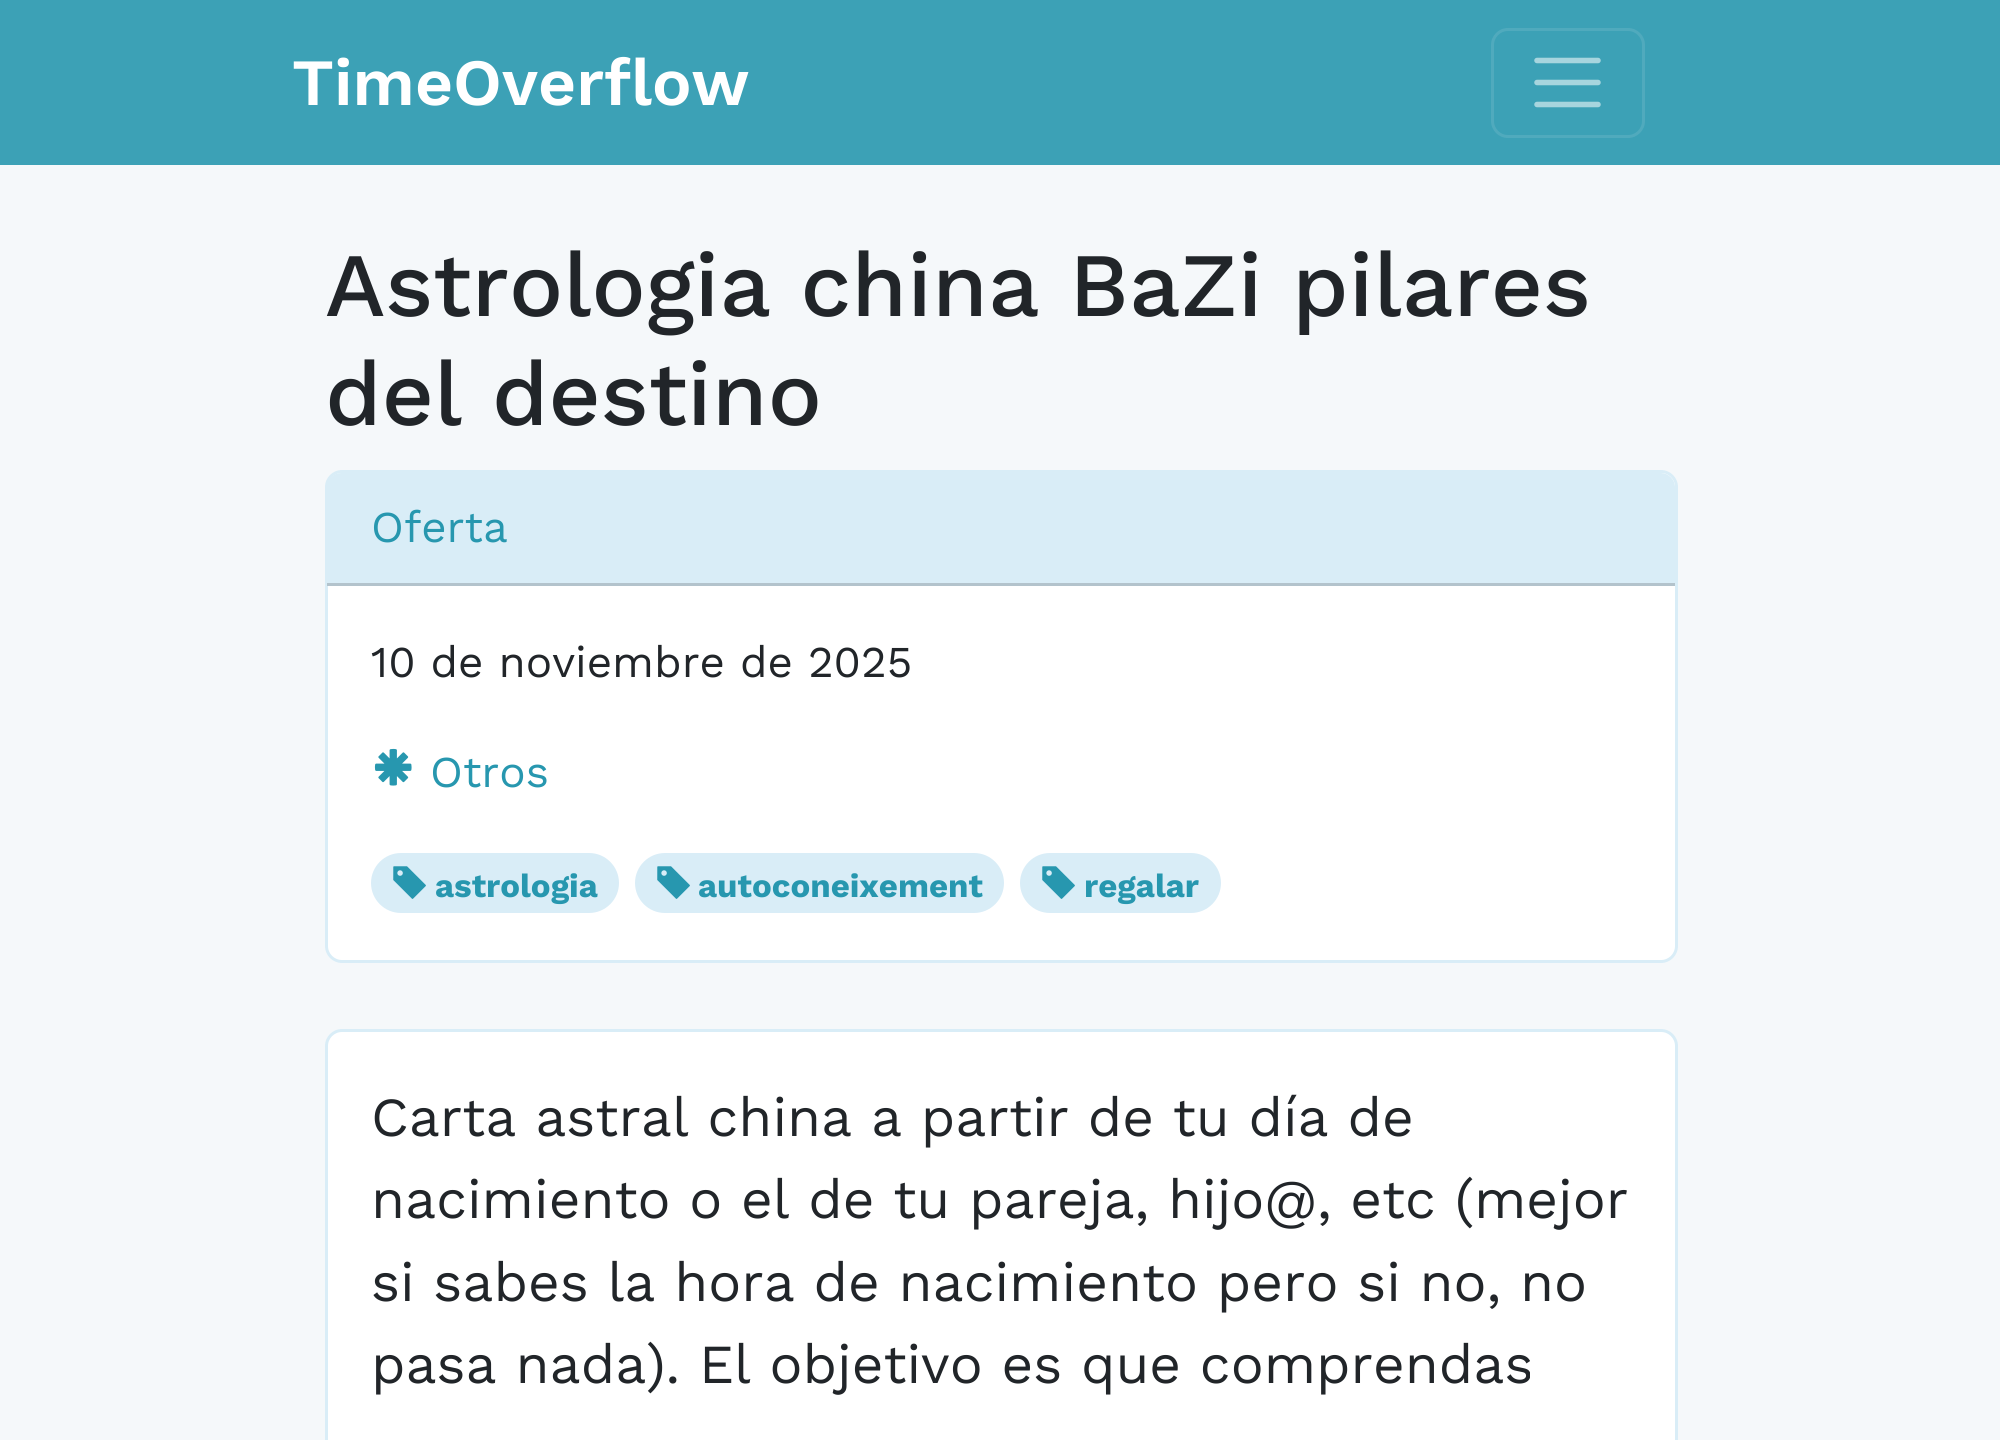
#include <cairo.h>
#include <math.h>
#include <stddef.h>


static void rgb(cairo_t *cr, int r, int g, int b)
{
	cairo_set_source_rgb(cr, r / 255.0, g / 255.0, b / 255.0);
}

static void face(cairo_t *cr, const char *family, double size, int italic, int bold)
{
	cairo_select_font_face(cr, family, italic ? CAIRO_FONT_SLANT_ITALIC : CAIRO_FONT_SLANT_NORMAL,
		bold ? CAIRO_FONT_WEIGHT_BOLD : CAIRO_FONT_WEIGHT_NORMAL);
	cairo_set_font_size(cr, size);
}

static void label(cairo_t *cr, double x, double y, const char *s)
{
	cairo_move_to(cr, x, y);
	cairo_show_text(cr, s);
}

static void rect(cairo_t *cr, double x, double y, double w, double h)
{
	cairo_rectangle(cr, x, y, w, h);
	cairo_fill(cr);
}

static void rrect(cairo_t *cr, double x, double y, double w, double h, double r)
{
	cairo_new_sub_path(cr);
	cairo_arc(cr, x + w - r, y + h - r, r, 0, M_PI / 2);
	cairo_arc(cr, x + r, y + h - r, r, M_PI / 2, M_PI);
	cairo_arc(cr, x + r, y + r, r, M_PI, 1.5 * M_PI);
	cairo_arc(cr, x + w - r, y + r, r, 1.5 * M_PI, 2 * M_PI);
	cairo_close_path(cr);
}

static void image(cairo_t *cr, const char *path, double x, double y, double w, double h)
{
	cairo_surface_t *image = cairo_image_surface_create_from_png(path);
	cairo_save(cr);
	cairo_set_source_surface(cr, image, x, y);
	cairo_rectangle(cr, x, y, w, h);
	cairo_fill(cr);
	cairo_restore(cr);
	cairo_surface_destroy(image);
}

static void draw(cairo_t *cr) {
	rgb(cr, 245, 248, 250);
	cairo_paint(cr);
	rgb(cr, 60, 161, 182);
	rect(cr, 0, 0, 2000, 165);
	face(cr, "Work Sans SemiBold", 66, 0, 0);
	rgb(cr, 255, 255, 255);
	label(cr, 292, 105, "TimeOverflow");
	rrect(cr, 1492.5, 29.5, 151, 107, 15.5);
	rgb(cr, 80, 170, 189);
	cairo_set_line_width(cr, 3);
	cairo_stroke(cr);
	cairo_new_path(cr);
	cairo_move_to(cr, 1537, 60.5);
	cairo_line_to(cr, 1598, 60.5);
	cairo_move_to(cr, 1537, 82.5);
	cairo_line_to(cr, 1598, 82.5);
	cairo_move_to(cr, 1537, 104.5);
	cairo_line_to(cr, 1598, 104.5);
	rgb(cr, 167, 213, 222);
	cairo_set_line_width(cr, 5.5);
	cairo_set_line_cap(cr, CAIRO_LINE_CAP_ROUND);
	cairo_stroke(cr);
	face(cr, "Work Sans Medium", 90.5, 0, 0);
	rgb(cr, 33, 37, 41);
	label(cr, 325, 316, "Astrologia china BaZi pilares");
	label(cr, 325, 425, "del destino");
	rgb(cr, 255, 255, 255);
	rrect(cr, 326.5, 471.5, 1350, 490, 15.5);
	cairo_fill_preserve(cr);
	rgb(cr, 217, 237, 247);
	cairo_set_line_width(cr, 3);
	cairo_set_line_cap(cr, CAIRO_LINE_CAP_BUTT);
	cairo_stroke(cr);
	cairo_new_path(cr);
	cairo_move_to(cr, 341, 473);
	cairo_line_to(cr, 1661, 473);
	cairo_curve_to(cr, 1668.5, 473, 1675, 479.5, 1675, 487);
	cairo_line_to(cr, 1675, 586);
	cairo_line_to(cr, 327, 586);
	cairo_line_to(cr, 327, 487);
	cairo_curve_to(cr, 327, 479.5, 333.5, 473, 341, 473);
	cairo_close_path(cr);
	cairo_fill(cr);
	rgb(cr, 179, 195, 204);
	rect(cr, 327, 583, 1348, 3);
	face(cr, "Work Sans", 44, 0, 0);
	rgb(cr, 39, 151, 175);
	label(cr, 371, 542, "Oferta");
	rgb(cr, 33, 37, 41);
	label(cr, 371, 677, "10 de noviembre de 2025");
	image(cr, "image0.png", 374, 748, 38, 38);
	rgb(cr, 39, 151, 175);
	label(cr, 430, 787, "Otros");
	rgb(cr, 217, 237, 247);
	rrect(cr, 371, 853, 248, 60, 30);
	cairo_fill(cr);
	image(cr, "image1.png", 393, 866, 33, 33);
	face(cr, "Work Sans", 33, 0, 1);
	rgb(cr, 39, 151, 175);
	label(cr, 435, 897, "astrologia");
	rgb(cr, 217, 237, 247);
	rrect(cr, 635, 853, 369, 60, 30);
	cairo_fill(cr);
	image(cr, "image1.png", 657, 866, 33, 33);
	rgb(cr, 39, 151, 175);
	label(cr, 698, 897, "autoconeixement");
	rgb(cr, 217, 237, 247);
	rrect(cr, 1020, 853, 201, 60, 30);
	cairo_fill(cr);
	image(cr, "image1.png", 1042, 866, 33, 33);
	rgb(cr, 39, 151, 175);
	label(cr, 1084, 897, "regalar");
	rgb(cr, 255, 255, 255);
	rrect(cr, 326.5, 1030.5, 1350, 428, 15.5);
	cairo_fill_preserve(cr);
	rgb(cr, 217, 237, 247);
	cairo_stroke(cr);
	face(cr, "Work Sans", 55, 0, 0);
	rgb(cr, 33, 37, 41);
	label(cr, 371, 1136, "Carta astral china a partir de tu día de");
	label(cr, 371, 1218, "nacimiento o el de tu pareja, hijo@, etc (mejor");
	label(cr, 371, 1301, "si sabes la hora de nacimiento pero si no, no");
	label(cr, 371, 1383, "pasa nada). El objetivo es que comprendas");
}

int main(void) {
	cairo_surface_t *surface = cairo_image_surface_create(CAIRO_FORMAT_RGB24, 2000, 1440);
	cairo_t *cr = cairo_create(surface);
	cairo_font_options_t *options = cairo_font_options_create();
	cairo_font_options_set_hint_metrics(options, CAIRO_HINT_METRICS_OFF);
	cairo_font_options_set_hint_style(options, CAIRO_HINT_STYLE_NONE);
	cairo_set_font_options(cr, options);
	cairo_set_miter_limit(cr, 4);
	draw(cr);
	cairo_surface_write_to_png(surface, "render.png");
	cairo_font_options_destroy(options);
	cairo_destroy(cr);
	cairo_surface_destroy(surface);
	return 0;
}
